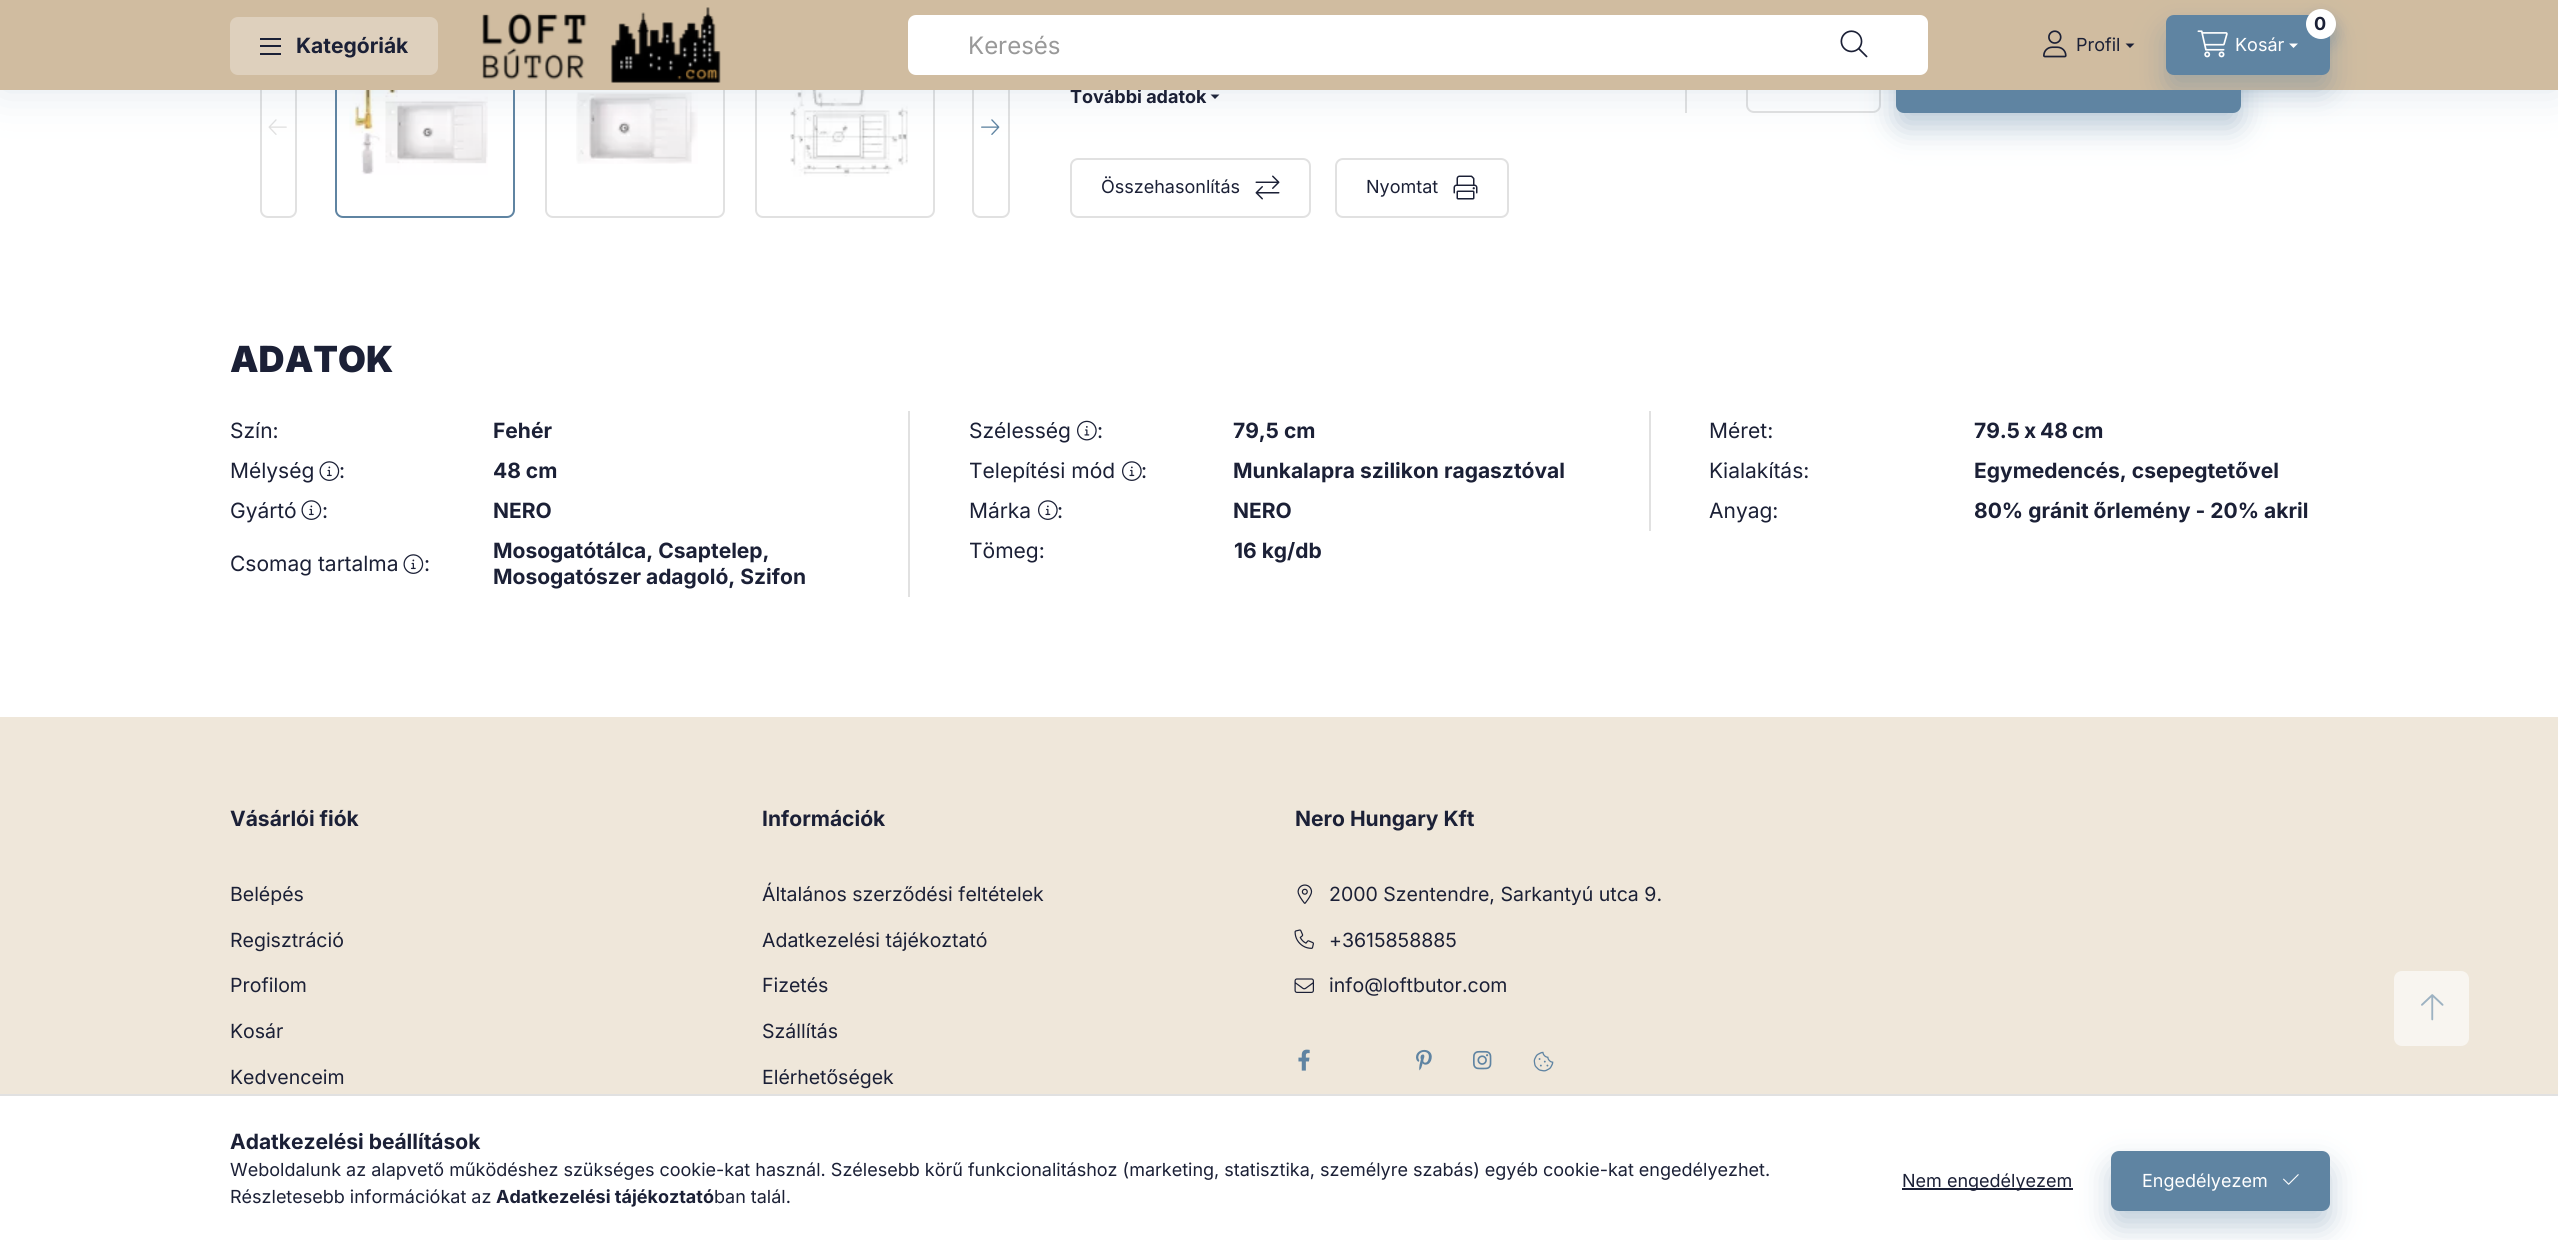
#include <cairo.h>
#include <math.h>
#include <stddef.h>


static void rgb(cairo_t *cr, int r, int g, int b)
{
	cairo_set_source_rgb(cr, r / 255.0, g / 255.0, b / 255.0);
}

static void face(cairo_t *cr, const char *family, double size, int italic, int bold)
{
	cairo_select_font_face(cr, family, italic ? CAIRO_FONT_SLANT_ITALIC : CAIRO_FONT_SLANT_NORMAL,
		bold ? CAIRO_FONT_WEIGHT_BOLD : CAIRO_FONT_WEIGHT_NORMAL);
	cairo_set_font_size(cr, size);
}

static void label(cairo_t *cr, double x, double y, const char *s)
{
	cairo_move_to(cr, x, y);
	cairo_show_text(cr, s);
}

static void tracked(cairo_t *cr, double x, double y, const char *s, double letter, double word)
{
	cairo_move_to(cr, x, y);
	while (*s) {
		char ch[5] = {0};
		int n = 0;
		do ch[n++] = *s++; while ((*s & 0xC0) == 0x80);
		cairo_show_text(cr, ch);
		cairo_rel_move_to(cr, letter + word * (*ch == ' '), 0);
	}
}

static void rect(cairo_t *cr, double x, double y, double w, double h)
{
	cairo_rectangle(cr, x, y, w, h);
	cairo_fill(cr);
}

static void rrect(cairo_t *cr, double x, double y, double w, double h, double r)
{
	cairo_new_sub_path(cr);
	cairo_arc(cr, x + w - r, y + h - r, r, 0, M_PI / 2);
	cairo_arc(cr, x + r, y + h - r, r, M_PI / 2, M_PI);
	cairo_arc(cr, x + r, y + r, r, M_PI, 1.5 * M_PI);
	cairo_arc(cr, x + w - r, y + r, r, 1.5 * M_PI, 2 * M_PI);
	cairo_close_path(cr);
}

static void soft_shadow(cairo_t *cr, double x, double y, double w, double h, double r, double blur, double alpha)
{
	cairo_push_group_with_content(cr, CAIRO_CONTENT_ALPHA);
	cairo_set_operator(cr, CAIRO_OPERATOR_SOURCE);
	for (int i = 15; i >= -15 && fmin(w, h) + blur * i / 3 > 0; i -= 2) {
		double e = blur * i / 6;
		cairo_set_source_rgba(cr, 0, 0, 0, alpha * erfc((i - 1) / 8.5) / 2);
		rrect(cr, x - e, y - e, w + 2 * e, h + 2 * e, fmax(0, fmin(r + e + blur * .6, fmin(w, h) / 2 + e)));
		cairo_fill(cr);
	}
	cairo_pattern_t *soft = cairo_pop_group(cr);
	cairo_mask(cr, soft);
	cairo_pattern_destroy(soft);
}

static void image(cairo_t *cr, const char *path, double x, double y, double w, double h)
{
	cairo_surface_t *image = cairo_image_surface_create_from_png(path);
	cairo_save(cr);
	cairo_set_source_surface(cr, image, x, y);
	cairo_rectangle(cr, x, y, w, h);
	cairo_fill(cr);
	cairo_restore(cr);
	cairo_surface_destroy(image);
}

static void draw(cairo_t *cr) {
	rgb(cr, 255, 255, 255);
	cairo_paint(cr);
	rrect(cr, 261, 39, 35, 178, 7);
	rgb(cr, 225, 225, 225);
	cairo_stroke(cr);
	image(cr, "image4.png", 268, 119, 19, 16);
	rrect(cr, 336, 39, 178, 178, 7);
	rgb(cr, 95, 132, 162);
	cairo_stroke(cr);
	image(cr, "image5.png", 349, 90, 139, 85);
	rrect(cr, 546, 39, 178, 178, 7);
	rgb(cr, 225, 225, 225);
	cairo_stroke(cr);
	image(cr, "image6.png", 576, 92, 122, 72);
	rrect(cr, 756, 39, 178, 178, 7);
	cairo_stroke(cr);
	image(cr, "image7.png", 790, 90, 118, 87);
	rrect(cr, 973, 39, 36, 178, 7);
	cairo_stroke(cr);
	image(cr, "image8.png", 981, 119, 19, 16);
	rgb(cr, 27, 32, 54);
	cairo_new_path(cr);
	cairo_move_to(cr, 1210.5, 94.5);
	cairo_line_to(cr, 1219.5, 94.5);
	cairo_line_to(cr, 1215, 99);
	cairo_close_path(cr);
	cairo_fill(cr);
	rgb(cr, 225, 225, 225);
	rect(cr, 1685, 90, 2, 23);
	rrect(cr, 1747, 24, 133, 88, 7);
	cairo_stroke(cr);
	rgb(cr, 95, 132, 162);
	soft_shadow(cr, 1896, 38, 345, 90, 8, 15, 0.4);
	rgb(cr, 95, 132, 162);
	rrect(cr, 1896, 23, 345, 90, 8);
	cairo_fill(cr);
	rrect(cr, 1071, 159, 239, 58, 7);
	rgb(cr, 225, 225, 225);
	cairo_stroke(cr);
	rrect(cr, 1336, 159, 172, 58, 7);
	cairo_stroke(cr);
	rgb(cr, 95, 132, 162);
	soft_shadow(cr, 0, 0, 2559, 90, 0, 22.5, 0.2);
	face(cr, "Inter", 18, 0, 1);
	rgb(cr, 27, 32, 54);
	label(cr, 1070, 103, "További adatok");
	rgb(cr, 208, 188, 160);
	rect(cr, 0, 0, 2558, 90);
	rgb(cr, 222, 208, 189);
	rrect(cr, 230, 17, 208, 58, 8);
	cairo_fill(cr);
	rgb(cr, 27, 32, 54);
	rect(cr, 260, 38, 21, 2);
	rect(cr, 260, 45, 21, 2);
	rect(cr, 260, 53, 21, 2);
	face(cr, "Inter", 21, 0, 1);
	label(cr, 296, 53, "Kategóriák");
	image(cr, "image0.png", 482, 7, 239, 76);
	rgb(cr, 255, 255, 255);
	rrect(cr, 908, 15, 1020, 60, 8);
	cairo_fill(cr);
	face(cr, "Inter", 24, 0, 0);
	rgb(cr, 153, 153, 153);
	label(cr, 968, 54, "Keresés");
	image(cr, "image1.png", 1840, 30, 28, 28);
	image(cr, "image2.png", 2043, 30, 24, 28);
	face(cr, "Inter", 18, 0, 0);
	rgb(cr, 27, 32, 54);
	label(cr, 2076, 51, "Profil");
	rgb(cr, 95, 132, 162);
	soft_shadow(cr, 2166, 30, 164, 60, 8, 15, 0.4);
	rgb(cr, 27, 32, 54);
	cairo_new_path(cr);
	cairo_move_to(cr, 2125.5, 43.5);
	cairo_line_to(cr, 2134.5, 43.5);
	cairo_line_to(cr, 2130, 48);
	cairo_close_path(cr);
	cairo_fill(cr);
	rgb(cr, 95, 132, 162);
	rrect(cr, 2166, 15, 164, 60, 8);
	cairo_fill(cr);
	rgb(cr, 95, 132, 162);
	soft_shadow(cr, 2306, 17, 30, 30, 15, 7.5, 0.4);
	rgb(cr, 255, 255, 255);
	cairo_arc(cr, 2321, 24, 15, 0, 2 * M_PI);
	cairo_fill(cr);
	face(cr, "Inter", 18, 0, 1);
	rgb(cr, 27, 32, 54);
	label(cr, 2314, 30, "0");
	image(cr, "image3.png", 2197, 30, 31, 28);
	face(cr, "Inter", 18, 0, 0);
	rgb(cr, 255, 255, 255);
	label(cr, 2235, 51, "Kosár");
	cairo_new_path(cr);
	cairo_move_to(cr, 2289, 43.5);
	cairo_line_to(cr, 2298, 43.5);
	cairo_line_to(cr, 2293.5, 48);
	cairo_close_path(cr);
	cairo_fill(cr);
	rgb(cr, 27, 32, 54);
	label(cr, 1101, 193, "Összehasonlítás");
	image(cr, "image9.png", 1255, 175, 25, 25);
	label(cr, 1366, 193, "Nyomtat");
	image(cr, "image10.png", 1453, 175, 25, 25);
	face(cr, "Inter Black", 36, 0, 0);
	label(cr, 230, 372, "ADATOK");
	rgb(cr, 225, 225, 225);
	rect(cr, 908, 411, 2, 186);
	face(cr, "Inter", 21, 0, 0);
	rgb(cr, 27, 32, 54);
	label(cr, 230, 438, "Szín:");
	face(cr, "Inter", 21, 0, 1);
	label(cr, 493, 438, "Fehér");
	rgb(cr, 225, 225, 225);
	rect(cr, 1649, 411, 2, 120);
	face(cr, "Inter", 21, 0, 0);
	rgb(cr, 27, 32, 54);
	label(cr, 969, 438, "Szélesség");
	image(cr, "image11.png", 1077, 420, 20, 21);
	label(cr, 1097, 438, ":");
	face(cr, "Inter", 21, 0, 1);
	label(cr, 1233, 438, "79,5 cm");
	face(cr, "Inter", 21, 0, 0);
	label(cr, 1709, 438, "Méret:");
	face(cr, "Inter", 21, 0, 1);
	tracked(cr, 1974, 438, "79.5 x 48 cm", 0, -1);
	face(cr, "Inter", 21, 0, 0);
	label(cr, 230, 478, "Mélység");
	image(cr, "image12.png", 319, 461, 21, 20);
	label(cr, 339, 478, ":");
	face(cr, "Inter", 21, 0, 1);
	label(cr, 493, 478, "48 cm");
	face(cr, "Inter", 21, 0, 0);
	label(cr, 969, 478, "Telepítési mód");
	image(cr, "image13.png", 1122, 461, 20, 20);
	label(cr, 1141, 478, ":");
	face(cr, "Inter", 21, 0, 1);
	label(cr, 1233, 478, "Munkalapra szilikon ragasztóval");
	face(cr, "Inter", 21, 0, 0);
	label(cr, 1709, 478, "Kialakítás:");
	face(cr, "Inter", 21, 0, 1);
	label(cr, 1974, 478, "Egymedencés, csepegtetővel");
	face(cr, "Inter", 21, 0, 0);
	label(cr, 230, 518, "Gyártó");
	image(cr, "image12.png", 301, 500, 21, 20);
	label(cr, 322, 518, ":");
	face(cr, "Inter", 21, 0, 1);
	label(cr, 493, 518, "NERO");
	face(cr, "Inter", 21, 0, 0);
	label(cr, 969, 518, "Márka");
	image(cr, "image13.png", 1038, 500, 20, 20);
	label(cr, 1057, 518, ":");
	face(cr, "Inter", 21, 0, 1);
	label(cr, 1233, 518, "NERO");
	face(cr, "Inter", 21, 0, 0);
	label(cr, 1709, 518, "Anyag:");
	face(cr, "Inter", 21, 0, 1);
	label(cr, 1974, 518, "80% gránit őrlemény - 20% akril");
	face(cr, "Inter", 21, 0, 0);
	label(cr, 230, 571, "Csomag tartalma");
	image(cr, "image12.png", 403, 554, 21, 20);
	label(cr, 424, 571, ":");
	face(cr, "Inter", 21, 0, 1);
	label(cr, 493, 558, "Mosogatótálca, Csaptelep,");
	label(cr, 493, 584, "Mosogatószer adagoló, Szifon");
	face(cr, "Inter", 21, 0, 0);
	label(cr, 969, 558, "Tömeg:");
	face(cr, "Inter", 21, 0, 1);
	label(cr, 1234, 558, "16 kg/db");
	rgb(cr, 239, 231, 218);
	rect(cr, 0, 717, 2558, 377);
	rgb(cr, 27, 32, 54);
	label(cr, 230, 826, "Vásárlói fiók");
	face(cr, "Inter", 19.5, 0, 0);
	label(cr, 230, 901, "Belépés");
	label(cr, 230, 947, "Regisztráció");
	label(cr, 230, 992, "Profilom");
	label(cr, 230, 1038, "Kosár");
	label(cr, 230, 1084, "Kedvenceim");
	face(cr, "Inter", 21, 0, 1);
	label(cr, 762, 826, "Információk");
	face(cr, "Inter", 19.5, 0, 0);
	label(cr, 762, 901, "Általános szerződési feltételek");
	label(cr, 762, 947, "Adatkezelési tájékoztató");
	label(cr, 762, 992, "Fizetés");
	label(cr, 762, 1038, "Szállítás");
	label(cr, 762, 1084, "Elérhetőségek");
	face(cr, "Inter", 21, 0, 1);
	label(cr, 1295, 826, "Nero Hungary Kft");
	image(cr, "image14.png", 1297, 884, 16, 20);
	face(cr, "Inter", 19.5, 0, 0);
	label(cr, 1329, 901, "2000 Szentendre, Sarkantyú utca 9.");
	image(cr, "image15.png", 1294, 929, 20, 20);
	label(cr, 1329, 947, "+3615858885");
	image(cr, "image16.png", 1294, 978, 20, 15);
	label(cr, 1329, 992, "info@loftbutor.com");
	image(cr, "image17.png", 1298, 1049, 12, 22);
	image(cr, "image18.png", 1416, 1049, 16, 22);
	image(cr, "image19.png", 1473, 1050, 19, 20);
	image(cr, "image20.png", 1533, 1051, 21, 21);
	rgb(cr, 248, 245, 240);
	rrect(cr, 2394, 971, 75, 75, 8);
	cairo_fill(cr);
	image(cr, "image21.png", 2421, 994, 23, 27);
	rgb(cr, 225, 225, 225);
	rect(cr, 0, 1094, 2558, 2);
	face(cr, "Inter", 21, 0, 1);
	rgb(cr, 27, 32, 54);
	label(cr, 230, 1149, "Adatkezelési beállítások");
	face(cr, "Inter", 18, 0, 0);
	label(cr, 230, 1176, "Weboldalunk az alapvető működéshez szükséges cookie-kat használ. Szélesebb körű funkcionalitáshoz (marketing, statisztika, személyre szabás) egyéb cookie-kat engedélyezhet.");
	label(cr, 230, 1203, "Részletesebb információkat az");
	face(cr, "Inter", 18, 0, 1);
	label(cr, 496, 1203, "Adatkezelési tájékoztató");
	face(cr, "Inter", 18, 0, 0);
	label(cr, 714, 1203, "ban talál.");
	rect(cr, 1902, 1188, 171, 2);
	label(cr, 1902, 1187, "Nem engedélyezem");
	rgb(cr, 95, 132, 162);
	soft_shadow(cr, 2111, 1166, 219, 60, 8, 15, 0.4);
	rgb(cr, 95, 132, 162);
	rrect(cr, 2112, 1152, 217, 58, 7);
	cairo_fill_preserve(cr);
	cairo_stroke(cr);
	rgb(cr, 255, 255, 255);
	label(cr, 2142, 1187, "Engedélyezem");
	image(cr, "image22.png", 2283, 1174, 16, 11);
}

int main(void) {
	cairo_surface_t *surface = cairo_image_surface_create(CAIRO_FORMAT_RGB24, 2558, 1240);
	cairo_t *cr = cairo_create(surface);
	cairo_font_options_t *options = cairo_font_options_create();
	cairo_font_options_set_hint_metrics(options, CAIRO_HINT_METRICS_OFF);
	cairo_font_options_set_hint_style(options, CAIRO_HINT_STYLE_NONE);
	cairo_set_font_options(cr, options);
	cairo_set_miter_limit(cr, 4);
	draw(cr);
	cairo_surface_write_to_png(surface, "render.png");
	cairo_font_options_destroy(options);
	cairo_destroy(cr);
	cairo_surface_destroy(surface);
	return 0;
}
